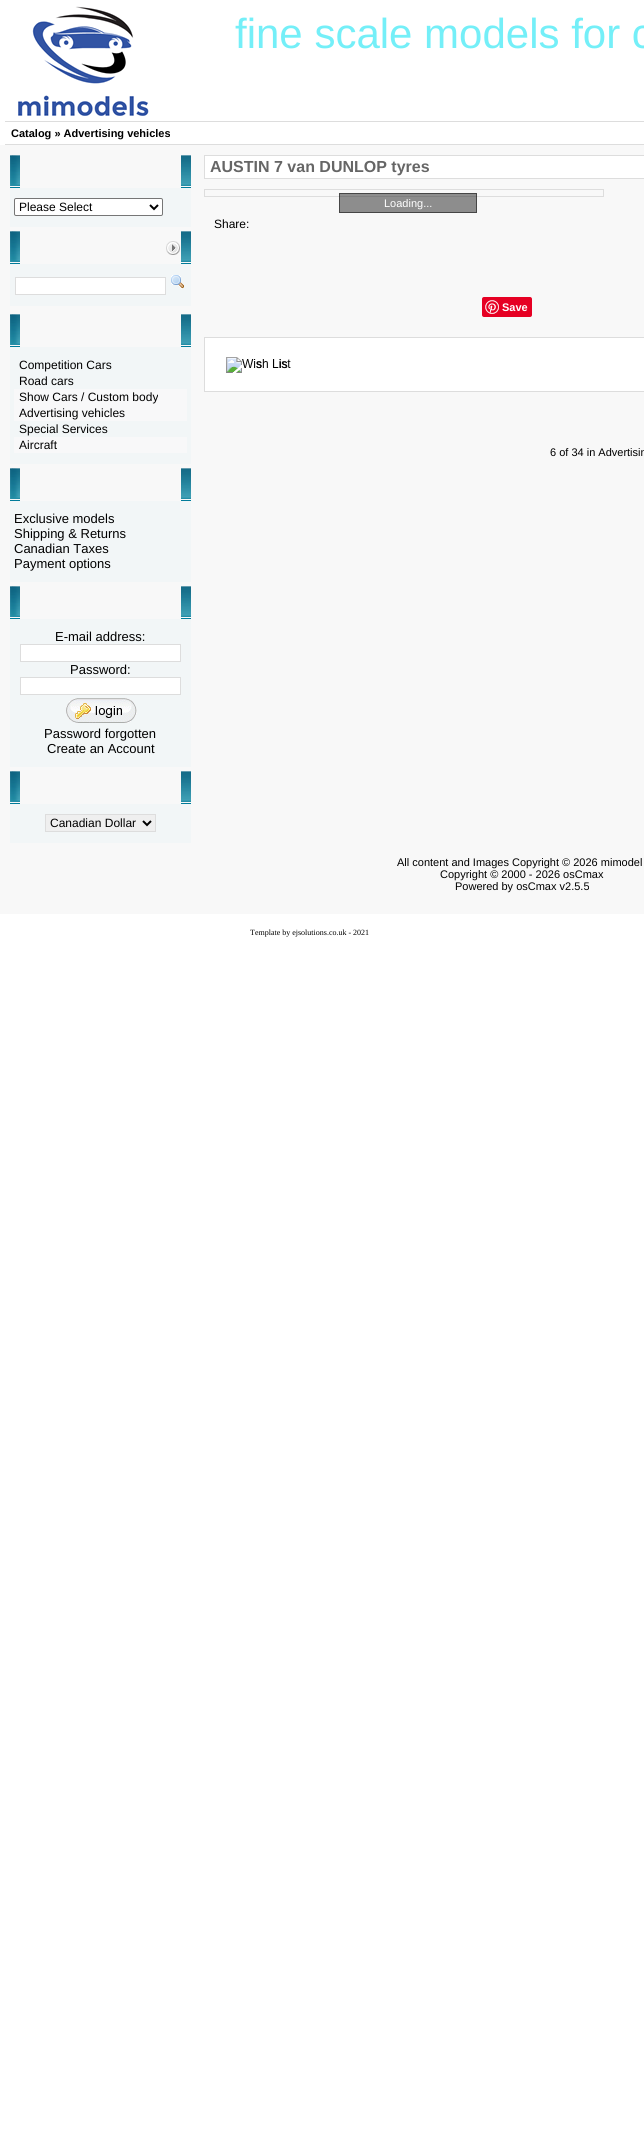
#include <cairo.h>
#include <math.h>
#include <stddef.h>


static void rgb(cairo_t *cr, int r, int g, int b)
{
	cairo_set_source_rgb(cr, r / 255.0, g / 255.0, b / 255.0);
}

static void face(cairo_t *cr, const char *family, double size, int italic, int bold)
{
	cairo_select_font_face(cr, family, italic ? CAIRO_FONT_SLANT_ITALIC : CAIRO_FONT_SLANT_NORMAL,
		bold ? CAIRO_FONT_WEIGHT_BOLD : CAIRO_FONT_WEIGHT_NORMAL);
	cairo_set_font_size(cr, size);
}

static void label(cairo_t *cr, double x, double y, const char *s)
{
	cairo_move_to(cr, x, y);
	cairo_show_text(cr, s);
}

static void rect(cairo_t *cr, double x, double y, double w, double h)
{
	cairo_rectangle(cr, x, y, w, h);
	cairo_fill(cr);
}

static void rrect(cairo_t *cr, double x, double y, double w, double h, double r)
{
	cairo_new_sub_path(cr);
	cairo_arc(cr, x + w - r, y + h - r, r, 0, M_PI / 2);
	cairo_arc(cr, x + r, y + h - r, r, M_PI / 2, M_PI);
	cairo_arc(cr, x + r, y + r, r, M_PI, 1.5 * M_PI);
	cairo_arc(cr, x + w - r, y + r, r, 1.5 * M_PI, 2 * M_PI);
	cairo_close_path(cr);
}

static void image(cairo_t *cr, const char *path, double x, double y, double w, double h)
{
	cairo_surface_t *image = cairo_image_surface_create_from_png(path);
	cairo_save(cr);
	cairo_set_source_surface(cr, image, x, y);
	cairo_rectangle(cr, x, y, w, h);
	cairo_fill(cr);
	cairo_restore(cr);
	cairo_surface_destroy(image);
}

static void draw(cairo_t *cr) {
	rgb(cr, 255, 255, 255);
	cairo_paint(cr);
	rgb(cr, 248, 248, 248);
	rect(cr, 0, 145, 644, 769);
	image(cr, "image0.png", 18, 6, 131, 110);
	face(cr, "Liberation Sans", 42, 0, 0);
	rgb(cr, 116, 239, 248);
	label(cr, 235, 48, "fine scale models for c");
	rgb(cr, 221, 221, 221);
	rect(cr, 5, 121, 639, 1);
	rect(cr, 5, 144, 639, 1);
	face(cr, "Liberation Sans", 11, 0, 1);
	rgb(cr, 0, 0, 0);
	label(cr, 11, 137, "Catalog » Advertising vehicles");
	image(cr, "image1.png", 10, 155, 10, 33);
	image(cr, "image2.png", 181, 155, 10, 33);
	rgb(cr, 242, 246, 247);
	rect(cr, 10, 188, 181, 39);
	rgb(cr, 255, 255, 255);
	rrect(cr, 14.5, 198.5, 148, 17, 1.5);
	cairo_fill_preserve(cr);
	rgb(cr, 118, 118, 118);
	cairo_set_line_width(cr, 1);
	cairo_stroke(cr);
	cairo_new_path(cr);
	cairo_move_to(cr, 150, 205);
	cairo_line_to(cr, 154, 209);
	cairo_line_to(cr, 158, 205);
	rgb(cr, 0, 0, 0);
	cairo_set_line_width(cr, 2);
	cairo_stroke(cr);
	face(cr, "Liberation Sans", 12, 0, 0);
	label(cr, 19, 211, "Please Select");
	image(cr, "image1.png", 10, 231, 10, 33);
	image(cr, "image3.png", 166, 241, 14, 14);
	image(cr, "image2.png", 181, 231, 10, 33);
	rgb(cr, 242, 246, 247);
	rect(cr, 10, 264, 181, 42);
	rgb(cr, 255, 255, 255);
	cairo_rectangle(cr, 15.5, 277.5, 150, 17);
	cairo_fill_preserve(cr);
	rgb(cr, 221, 221, 221);
	cairo_set_line_width(cr, 1);
	cairo_stroke(cr);
	image(cr, "image4.png", 171, 275, 13, 14);
	image(cr, "image1.png", 10, 314, 10, 33);
	image(cr, "image2.png", 181, 314, 10, 33);
	rgb(cr, 242, 246, 247);
	rect(cr, 10, 347, 181, 117);
	rgb(cr, 0, 0, 0);
	label(cr, 19, 369, "Competition Cars");
	label(cr, 19, 385, "Road cars");
	rgb(cr, 248, 248, 249);
	rect(cr, 14, 389, 173, 32);
	rgb(cr, 0, 0, 0);
	label(cr, 19, 401, "Show Cars / Custom body");
	label(cr, 19, 417, "Advertising vehicles");
	label(cr, 19, 433, "Special Services");
	rgb(cr, 248, 248, 249);
	rect(cr, 14, 437, 173, 16);
	rgb(cr, 0, 0, 0);
	label(cr, 19, 449, "Aircraft");
	image(cr, "image1.png", 10, 468, 10, 33);
	image(cr, "image2.png", 181, 468, 10, 33);
	rgb(cr, 242, 246, 247);
	rect(cr, 10, 501, 181, 81);
	face(cr, "Liberation Sans", 13, 0, 0);
	rgb(cr, 0, 0, 0);
	label(cr, 14, 523, "Exclusive models");
	label(cr, 14, 538, "Shipping & Returns");
	label(cr, 14, 553, "Canadian Taxes");
	label(cr, 14, 568, "Payment options");
	image(cr, "image1.png", 10, 586, 10, 33);
	image(cr, "image2.png", 181, 586, 10, 33);
	rgb(cr, 242, 246, 247);
	rect(cr, 10, 619, 181, 148);
	rgb(cr, 0, 0, 0);
	label(cr, 55, 641, "E-mail address:");
	rgb(cr, 255, 255, 255);
	cairo_rectangle(cr, 20.5, 644.5, 160, 17);
	cairo_fill_preserve(cr);
	rgb(cr, 221, 221, 221);
	cairo_stroke(cr);
	rgb(cr, 0, 0, 0);
	label(cr, 70, 674, "Password:");
	rgb(cr, 255, 255, 255);
	cairo_rectangle(cr, 20.5, 677.5, 160, 17);
	cairo_fill_preserve(cr);
	rgb(cr, 221, 221, 221);
	cairo_stroke(cr);
	image(cr, "image5.png", 66, 698, 71, 25);
	rgb(cr, 0, 0, 0);
	label(cr, 44, 738, "Password forgotten");
	label(cr, 47, 753, "Create an Account");
	image(cr, "image1.png", 10, 771, 10, 33);
	image(cr, "image2.png", 181, 771, 10, 33);
	rgb(cr, 242, 246, 247);
	rect(cr, 10, 804, 181, 39);
	rgb(cr, 239, 239, 239);
	cairo_rectangle(cr, 45.5, 814.5, 110, 17);
	cairo_fill_preserve(cr);
	rgb(cr, 221, 221, 221);
	cairo_stroke(cr);
	cairo_new_path(cr);
	cairo_move_to(cr, 143, 821);
	cairo_line_to(cr, 147, 825);
	cairo_line_to(cr, 151, 821);
	rgb(cr, 0, 0, 0);
	cairo_set_line_width(cr, 2);
	cairo_stroke(cr);
	face(cr, "Liberation Sans", 12, 0, 0);
	label(cr, 50, 827, "Canadian Dollar");
	rgb(cr, 255, 255, 255);
	cairo_rectangle(cr, 204.5, 155.5, 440, 23);
	cairo_fill_preserve(cr);
	rgb(cr, 221, 221, 221);
	cairo_set_line_width(cr, 1);
	cairo_stroke(cr);
	face(cr, "Liberation Sans", 16, 0, 1);
	rgb(cr, 102, 102, 102);
	label(cr, 210, 172, "AUSTIN 7 van DUNLOP tyres");
	cairo_rectangle(cr, 204.5, 189.5, 399, 7);
	rgb(cr, 221, 221, 221);
	cairo_stroke(cr);
	cairo_set_source_rgba(cr, 0.133, 0.133, 0.133, 0.5);
	rect(cr, 339, 193, 138, 20);
	cairo_rectangle(cr, 339.5, 193.5, 137, 19);
	cairo_set_source_rgba(cr, 0, 0, 0, 0.5);
	cairo_stroke(cr);
	face(cr, "Liberation Sans", 11, 0, 0);
	rgb(cr, 255, 255, 255);
	label(cr, 384, 207, "Loading...");
	face(cr, "Liberation Sans", 12, 0, 0);
	rgb(cr, 0, 0, 0);
	label(cr, 214, 228, "Share:");
	rgb(cr, 230, 0, 35);
	rrect(cr, 482, 297, 50, 20, 2);
	cairo_fill(cr);
	image(cr, "image6.png", 485, 300, 14, 14);
	face(cr, "Liberation Sans", 11, 0, 1);
	rgb(cr, 255, 255, 255);
	label(cr, 502, 311, "Save");
	cairo_rectangle(cr, 204.5, 337.5, 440, 54);
	cairo_fill_preserve(cr);
	rgb(cr, 221, 221, 221);
	cairo_stroke(cr);
	image(cr, "image7.png", 226, 357, 65, 16);
	face(cr, "Liberation Sans", 12, 0, 0);
	rgb(cr, 0, 0, 0);
	label(cr, 256, 368, "s");
	label(cr, 279, 368, "is");
	face(cr, "Liberation Sans", 11, 0, 0);
	label(cr, 550, 456, "6 of 34 in Advertisin");
	label(cr, 397, 866, "All content and Images Copyright © 2026 mimodel");
	label(cr, 440, 878, "Copyright © 2000 - 2026 osCmax");
	label(cr, 455, 890, "Powered by osCmax v2.5.5");
	face(cr, "Liberation Serif", 8, 0, 0);
	label(cr, 250, 935, "Template by ejsolutions.co.uk - 2021");
}

int main(void) {
	cairo_surface_t *surface = cairo_image_surface_create(CAIRO_FORMAT_RGB24, 644, 2142);
	cairo_t *cr = cairo_create(surface);
	cairo_font_options_t *options = cairo_font_options_create();
	cairo_font_options_set_hint_metrics(options, CAIRO_HINT_METRICS_OFF);
	cairo_font_options_set_hint_style(options, CAIRO_HINT_STYLE_NONE);
	cairo_set_font_options(cr, options);
	cairo_set_miter_limit(cr, 4);
	draw(cr);
	cairo_surface_write_to_png(surface, "render.png");
	cairo_font_options_destroy(options);
	cairo_destroy(cr);
	cairo_surface_destroy(surface);
	return 0;
}
